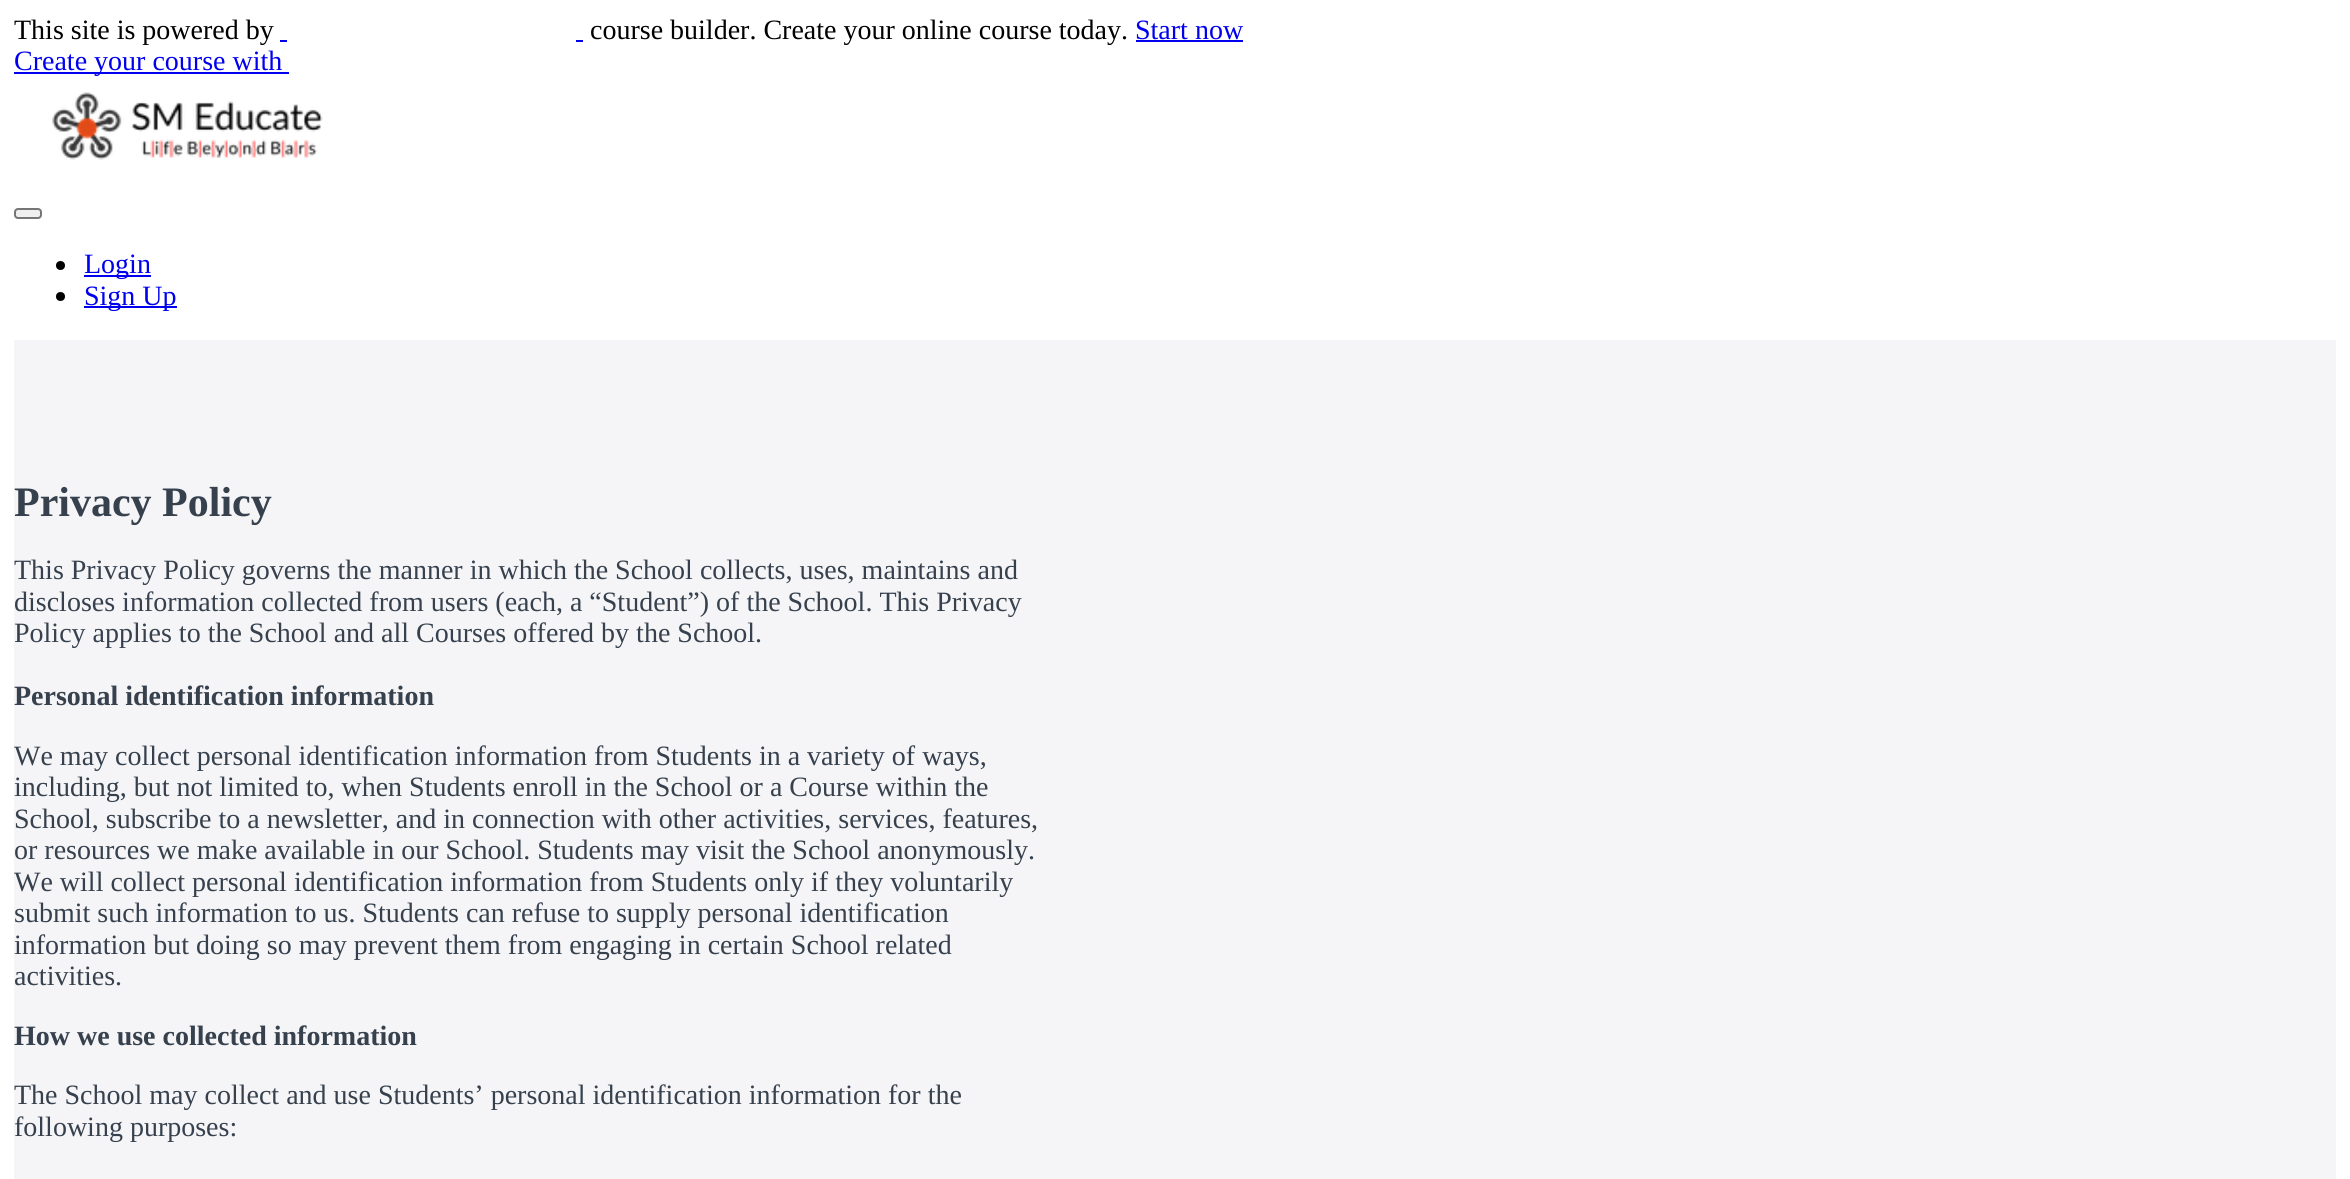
#include <cairo.h>
#include <math.h>
#include <stddef.h>


static void rgb(cairo_t *cr, int r, int g, int b)
{
	cairo_set_source_rgb(cr, r / 255.0, g / 255.0, b / 255.0);
}

static void face(cairo_t *cr, const char *family, double size, int italic, int bold)
{
	cairo_select_font_face(cr, family, italic ? CAIRO_FONT_SLANT_ITALIC : CAIRO_FONT_SLANT_NORMAL,
		bold ? CAIRO_FONT_WEIGHT_BOLD : CAIRO_FONT_WEIGHT_NORMAL);
	cairo_set_font_size(cr, size);
}

static void label(cairo_t *cr, double x, double y, const char *s)
{
	cairo_move_to(cr, x, y);
	cairo_show_text(cr, s);
}

static void rect(cairo_t *cr, double x, double y, double w, double h)
{
	cairo_rectangle(cr, x, y, w, h);
	cairo_fill(cr);
}

static void rrect(cairo_t *cr, double x, double y, double w, double h, double r)
{
	cairo_new_sub_path(cr);
	cairo_arc(cr, x + w - r, y + h - r, r, 0, M_PI / 2);
	cairo_arc(cr, x + r, y + h - r, r, M_PI / 2, M_PI);
	cairo_arc(cr, x + r, y + r, r, M_PI, 1.5 * M_PI);
	cairo_arc(cr, x + w - r, y + r, r, 1.5 * M_PI, 2 * M_PI);
	cairo_close_path(cr);
}

static void image(cairo_t *cr, const char *path, double x, double y, double w, double h)
{
	cairo_surface_t *image = cairo_image_surface_create_from_png(path);
	cairo_save(cr);
	cairo_set_source_surface(cr, image, x, y);
	cairo_rectangle(cr, x, y, w, h);
	cairo_fill(cr);
	cairo_restore(cr);
	cairo_surface_destroy(image);
}

static void draw(cairo_t *cr) {
	rgb(cr, 255, 255, 255);
	cairo_paint(cr);
	face(cr, "Liberation Serif", 28, 0, 0);
	rgb(cr, 0, 0, 0);
	label(cr, 14, 39, "This site is powered by");
	label(cr, 590, 39, "course builder. Create your online course today.");
	rgb(cr, 0, 0, 238);
	label(cr, 1135, 39, "Start now");
	rect(cr, 1136, 40, 107, 2);
	rect(cr, 280, 40, 7, 2);
	rect(cr, 576, 40, 7, 2);
	rect(cr, 14, 72, 275, 2);
	label(cr, 14, 70, "Create your course with");
	image(cr, "image0.png", 52, 92, 271, 68);
	rgb(cr, 239, 239, 239);
	rrect(cr, 15, 209, 26, 9, 3);
	cairo_fill_preserve(cr);
	rgb(cr, 118, 118, 118);
	cairo_stroke(cr);
	rgb(cr, 0, 0, 0);
	cairo_arc(cr, 60.5, 265.5, 4.5, 0, 2 * M_PI);
	cairo_fill(cr);
	rgb(cr, 0, 0, 238);
	rect(cr, 84, 275, 67, 2);
	label(cr, 84, 273, "Login");
	rgb(cr, 0, 0, 0);
	cairo_new_path(cr);
	cairo_arc(cr, 60.5, 296.5, 4.5, 0, 2 * M_PI);
	cairo_fill(cr);
	rgb(cr, 0, 0, 238);
	rect(cr, 84, 306, 93, 2);
	label(cr, 84, 305, "Sign Up");
	rgb(cr, 245, 245, 248);
	rect(cr, 14, 340, 2322, 839);
	face(cr, "Liberation Serif", 42, 0, 1);
	rgb(cr, 54, 65, 77);
	label(cr, 14, 516, "Privacy Policy");
	face(cr, "Liberation Serif", 28, 0, 0);
	label(cr, 14, 579, "This Privacy Policy governs the manner in which the School collects, uses, maintains and");
	label(cr, 14, 611, "discloses information collected from users (each, a “Student”) of the School. This Privacy");
	label(cr, 14, 642, "Policy applies to the School and all Courses offered by the School.");
	face(cr, "Liberation Serif", 28, 0, 1);
	label(cr, 14, 705, "Personal identification information");
	face(cr, "Liberation Serif", 28, 0, 0);
	label(cr, 14, 765, "We may collect personal identification information from Students in a variety of ways,");
	label(cr, 14, 796, "including, but not limited to, when Students enroll in the School or a Course within the");
	label(cr, 14, 828, "School, subscribe to a newsletter, and in connection with other activities, services, features,");
	label(cr, 14, 859, "or resources we make available in our School. Students may visit the School anonymously.");
	label(cr, 14, 891, "We will collect personal identification information from Students only if they voluntarily");
	label(cr, 14, 922, "submit such information to us. Students can refuse to supply personal identification");
	label(cr, 14, 954, "information but doing so may prevent them from engaging in certain School related");
	label(cr, 14, 985, "activities.");
	face(cr, "Liberation Serif", 28, 0, 1);
	label(cr, 14, 1045, "How we use collected information");
	face(cr, "Liberation Serif", 28, 0, 0);
	label(cr, 14, 1104, "The School may collect and use Students’ personal identification information for the");
	label(cr, 14, 1136, "following purposes:");
}

int main(void) {
	cairo_surface_t *surface = cairo_image_surface_create(CAIRO_FORMAT_RGB24, 2350, 1179);
	cairo_t *cr = cairo_create(surface);
	cairo_font_options_t *options = cairo_font_options_create();
	cairo_font_options_set_hint_metrics(options, CAIRO_HINT_METRICS_OFF);
	cairo_font_options_set_hint_style(options, CAIRO_HINT_STYLE_NONE);
	cairo_set_font_options(cr, options);
	cairo_set_miter_limit(cr, 4);
	draw(cr);
	cairo_surface_write_to_png(surface, "render.png");
	cairo_font_options_destroy(options);
	cairo_destroy(cr);
	cairo_surface_destroy(surface);
	return 0;
}
